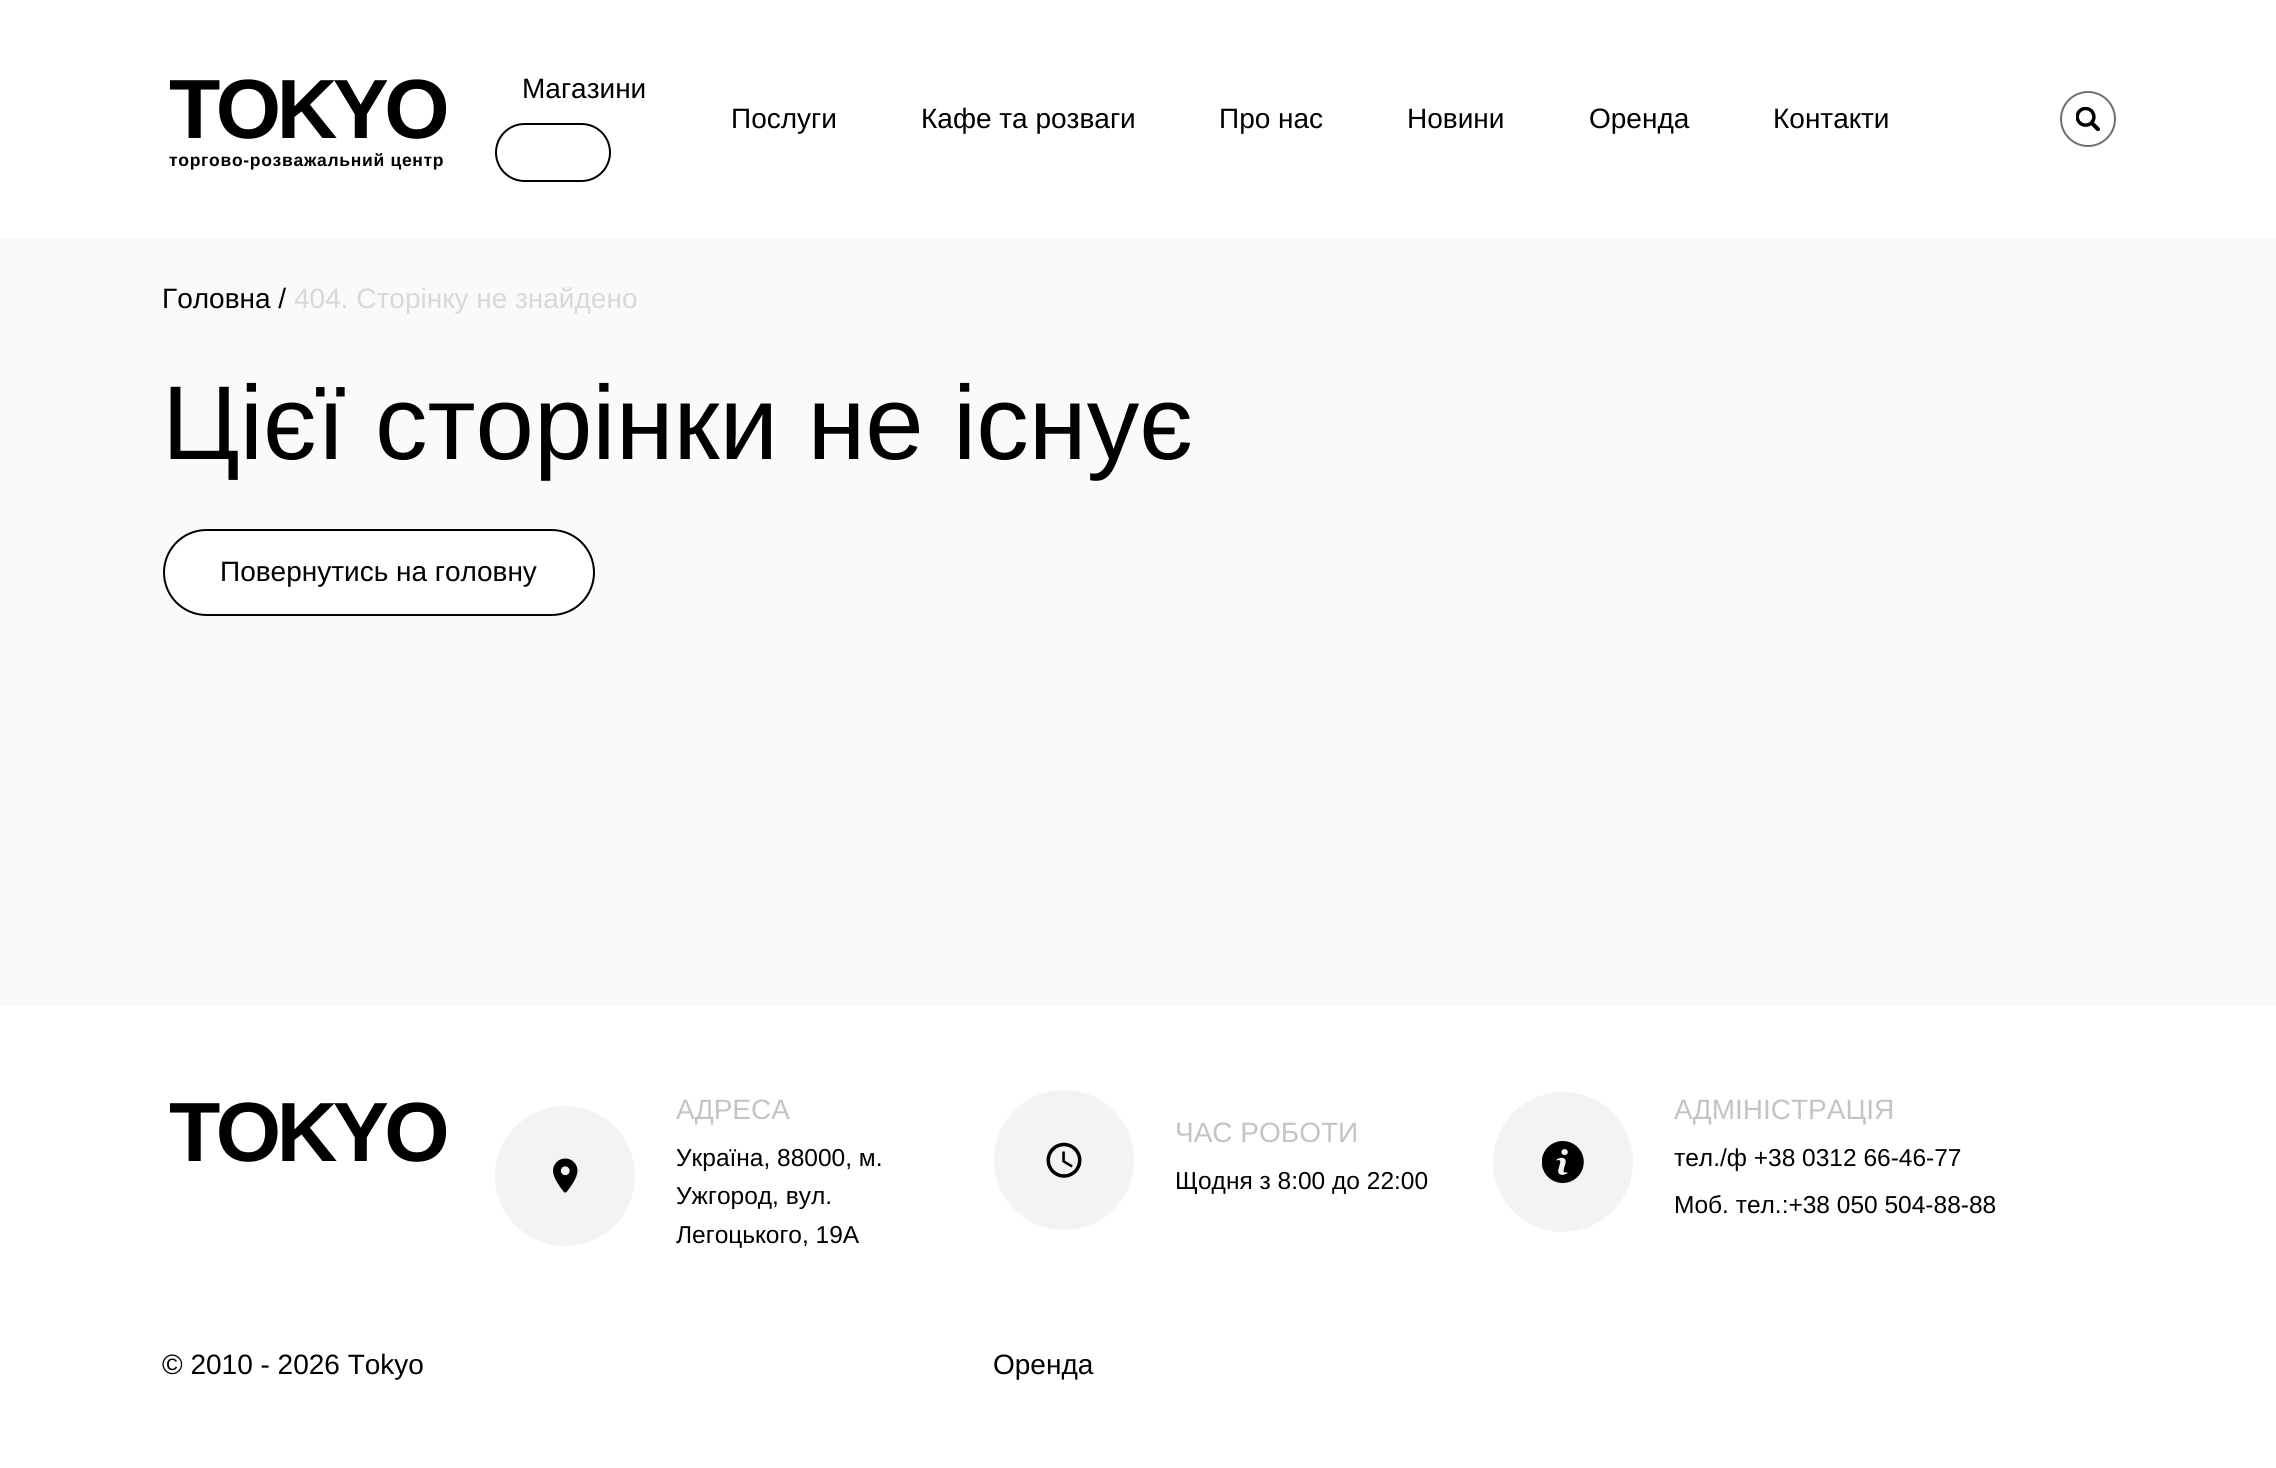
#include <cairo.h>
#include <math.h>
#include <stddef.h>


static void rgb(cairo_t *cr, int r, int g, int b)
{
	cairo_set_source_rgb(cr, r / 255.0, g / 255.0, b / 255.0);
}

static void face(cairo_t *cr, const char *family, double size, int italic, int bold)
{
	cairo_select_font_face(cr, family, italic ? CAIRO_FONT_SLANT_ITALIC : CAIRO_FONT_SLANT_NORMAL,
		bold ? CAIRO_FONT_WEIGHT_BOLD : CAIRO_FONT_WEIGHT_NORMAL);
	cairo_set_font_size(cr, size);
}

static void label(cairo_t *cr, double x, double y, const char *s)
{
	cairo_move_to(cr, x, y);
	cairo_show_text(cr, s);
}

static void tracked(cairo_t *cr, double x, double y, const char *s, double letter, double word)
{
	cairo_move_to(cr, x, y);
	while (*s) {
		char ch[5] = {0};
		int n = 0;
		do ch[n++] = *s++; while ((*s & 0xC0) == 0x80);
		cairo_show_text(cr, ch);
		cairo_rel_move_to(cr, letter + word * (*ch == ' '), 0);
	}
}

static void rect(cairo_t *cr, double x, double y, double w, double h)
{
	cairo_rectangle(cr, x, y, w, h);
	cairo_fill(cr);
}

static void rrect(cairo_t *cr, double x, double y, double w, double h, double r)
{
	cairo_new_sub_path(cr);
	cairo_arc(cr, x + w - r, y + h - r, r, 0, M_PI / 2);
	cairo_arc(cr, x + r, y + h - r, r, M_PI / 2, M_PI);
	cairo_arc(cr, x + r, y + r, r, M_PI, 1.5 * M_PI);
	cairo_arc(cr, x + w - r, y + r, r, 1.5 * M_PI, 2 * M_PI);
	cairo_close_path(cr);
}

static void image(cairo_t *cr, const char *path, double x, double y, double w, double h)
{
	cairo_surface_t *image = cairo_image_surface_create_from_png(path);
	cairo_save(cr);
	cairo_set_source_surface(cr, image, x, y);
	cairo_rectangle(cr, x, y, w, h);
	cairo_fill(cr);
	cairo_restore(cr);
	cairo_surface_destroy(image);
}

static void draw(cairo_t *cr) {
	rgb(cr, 250, 250, 250);
	cairo_paint(cr);
	rgb(cr, 255, 255, 255);
	rect(cr, 0, 0, 2276, 238);
	face(cr, "Liberation Sans", 84, 0, 1);
	rgb(cr, 0, 0, 0);
	tracked(cr, 169, 138, "TOKYO", -4.5, 0);
	face(cr, "Liberation Sans", 17.5, 0, 1);
	tracked(cr, 169, 166, "торгово-розважальний центр", 0.7, 0);
	face(cr, "Liberation Sans", 28, 0, 0);
	label(cr, 522, 98, "Магазини");
	rrect(cr, 496, 124, 114, 57, 28.5);
	cairo_stroke(cr);
	label(cr, 731, 128, "Послуги");
	label(cr, 921, 128, "Кафе та розваги");
	label(cr, 1219, 128, "Про нас");
	label(cr, 1407, 128, "Новини");
	label(cr, 1589, 128, "Оренда");
	label(cr, 1773, 128, "Контакти");
	cairo_new_path(cr);
	cairo_arc(cr, 2088, 119, 27, 0, 2 * M_PI);
	rgb(cr, 112, 112, 112);
	cairo_stroke(cr);
	image(cr, "image0.png", 2076, 107, 24, 24);
	rgb(cr, 0, 0, 0);
	label(cr, 162, 308, "Головна /");
	rgb(cr, 216, 216, 216);
	label(cr, 294, 308, "404. Сторінку не знайдено");
	face(cr, "Liberation Sans", 105, 0, 0);
	rgb(cr, 0, 0, 0);
	label(cr, 162, 459, "Цієї сторінки не існує");
	rgb(cr, 255, 255, 255);
	rrect(cr, 164, 530, 430, 85, 42.5);
	cairo_fill_preserve(cr);
	rgb(cr, 0, 0, 0);
	cairo_stroke(cr);
	face(cr, "Liberation Sans", 28, 0, 0);
	label(cr, 220, 581, "Повернутись на головну");
	rgb(cr, 255, 255, 255);
	rect(cr, 0, 1006, 2276, 462);
	face(cr, "Liberation Sans", 84, 0, 1);
	rgb(cr, 0, 0, 0);
	tracked(cr, 169, 1161, "TOKYO", -4.5, 0);
	rgb(cr, 242, 243, 244);
	cairo_new_path(cr);
	cairo_arc(cr, 565, 1176, 70, 0, 2 * M_PI);
	cairo_fill(cr);
	image(cr, "image1.png", 553, 1158, 25, 35);
	face(cr, "Liberation Sans", 28, 0, 0);
	rgb(cr, 196, 196, 196);
	label(cr, 676, 1119, "АДРЕСА");
	face(cr, "Liberation Sans", 24.5, 0, 0);
	rgb(cr, 0, 0, 0);
	label(cr, 676, 1166, "Україна, 88000, м.");
	label(cr, 676, 1204, "Ужгород, вул.");
	label(cr, 676, 1243, "Легоцького, 19А");
	rgb(cr, 242, 243, 244);
	cairo_new_path(cr);
	cairo_arc(cr, 1064, 1160, 70, 0, 2 * M_PI);
	cairo_fill(cr);
	image(cr, "image2.png", 1046, 1142, 36, 36);
	face(cr, "Liberation Sans", 28, 0, 0);
	rgb(cr, 196, 196, 196);
	label(cr, 1175, 1142, "ЧАС РОБОТИ");
	face(cr, "Liberation Sans", 24.5, 0, 0);
	rgb(cr, 0, 0, 0);
	label(cr, 1175, 1189, "Щодня з 8:00 до 22:00");
	rgb(cr, 242, 243, 244);
	cairo_new_path(cr);
	cairo_arc(cr, 1563, 1162, 70, 0, 2 * M_PI);
	cairo_fill(cr);
	image(cr, "image3.png", 1542, 1141, 42, 42);
	face(cr, "Liberation Sans", 28, 0, 0);
	rgb(cr, 196, 196, 196);
	label(cr, 1674, 1119, "АДМІНІСТРАЦІЯ");
	face(cr, "Liberation Sans", 24.5, 0, 0);
	rgb(cr, 0, 0, 0);
	label(cr, 1674, 1166, "тел./ф +38 0312 66-46-77");
	label(cr, 1674, 1213, "Моб. тел.:+38 050 504-88-88");
	face(cr, "Liberation Sans", 28, 0, 0);
	label(cr, 162, 1374, "© 2010 - 2026 Tokyo");
	label(cr, 993, 1374, "Оренда");
}

int main(void) {
	cairo_surface_t *surface = cairo_image_surface_create(CAIRO_FORMAT_RGB24, 2276, 1468);
	cairo_t *cr = cairo_create(surface);
	cairo_font_options_t *options = cairo_font_options_create();
	cairo_font_options_set_hint_metrics(options, CAIRO_HINT_METRICS_OFF);
	cairo_font_options_set_hint_style(options, CAIRO_HINT_STYLE_NONE);
	cairo_set_font_options(cr, options);
	cairo_set_miter_limit(cr, 4);
	draw(cr);
	cairo_surface_write_to_png(surface, "render.png");
	cairo_font_options_destroy(options);
	cairo_destroy(cr);
	cairo_surface_destroy(surface);
	return 0;
}
